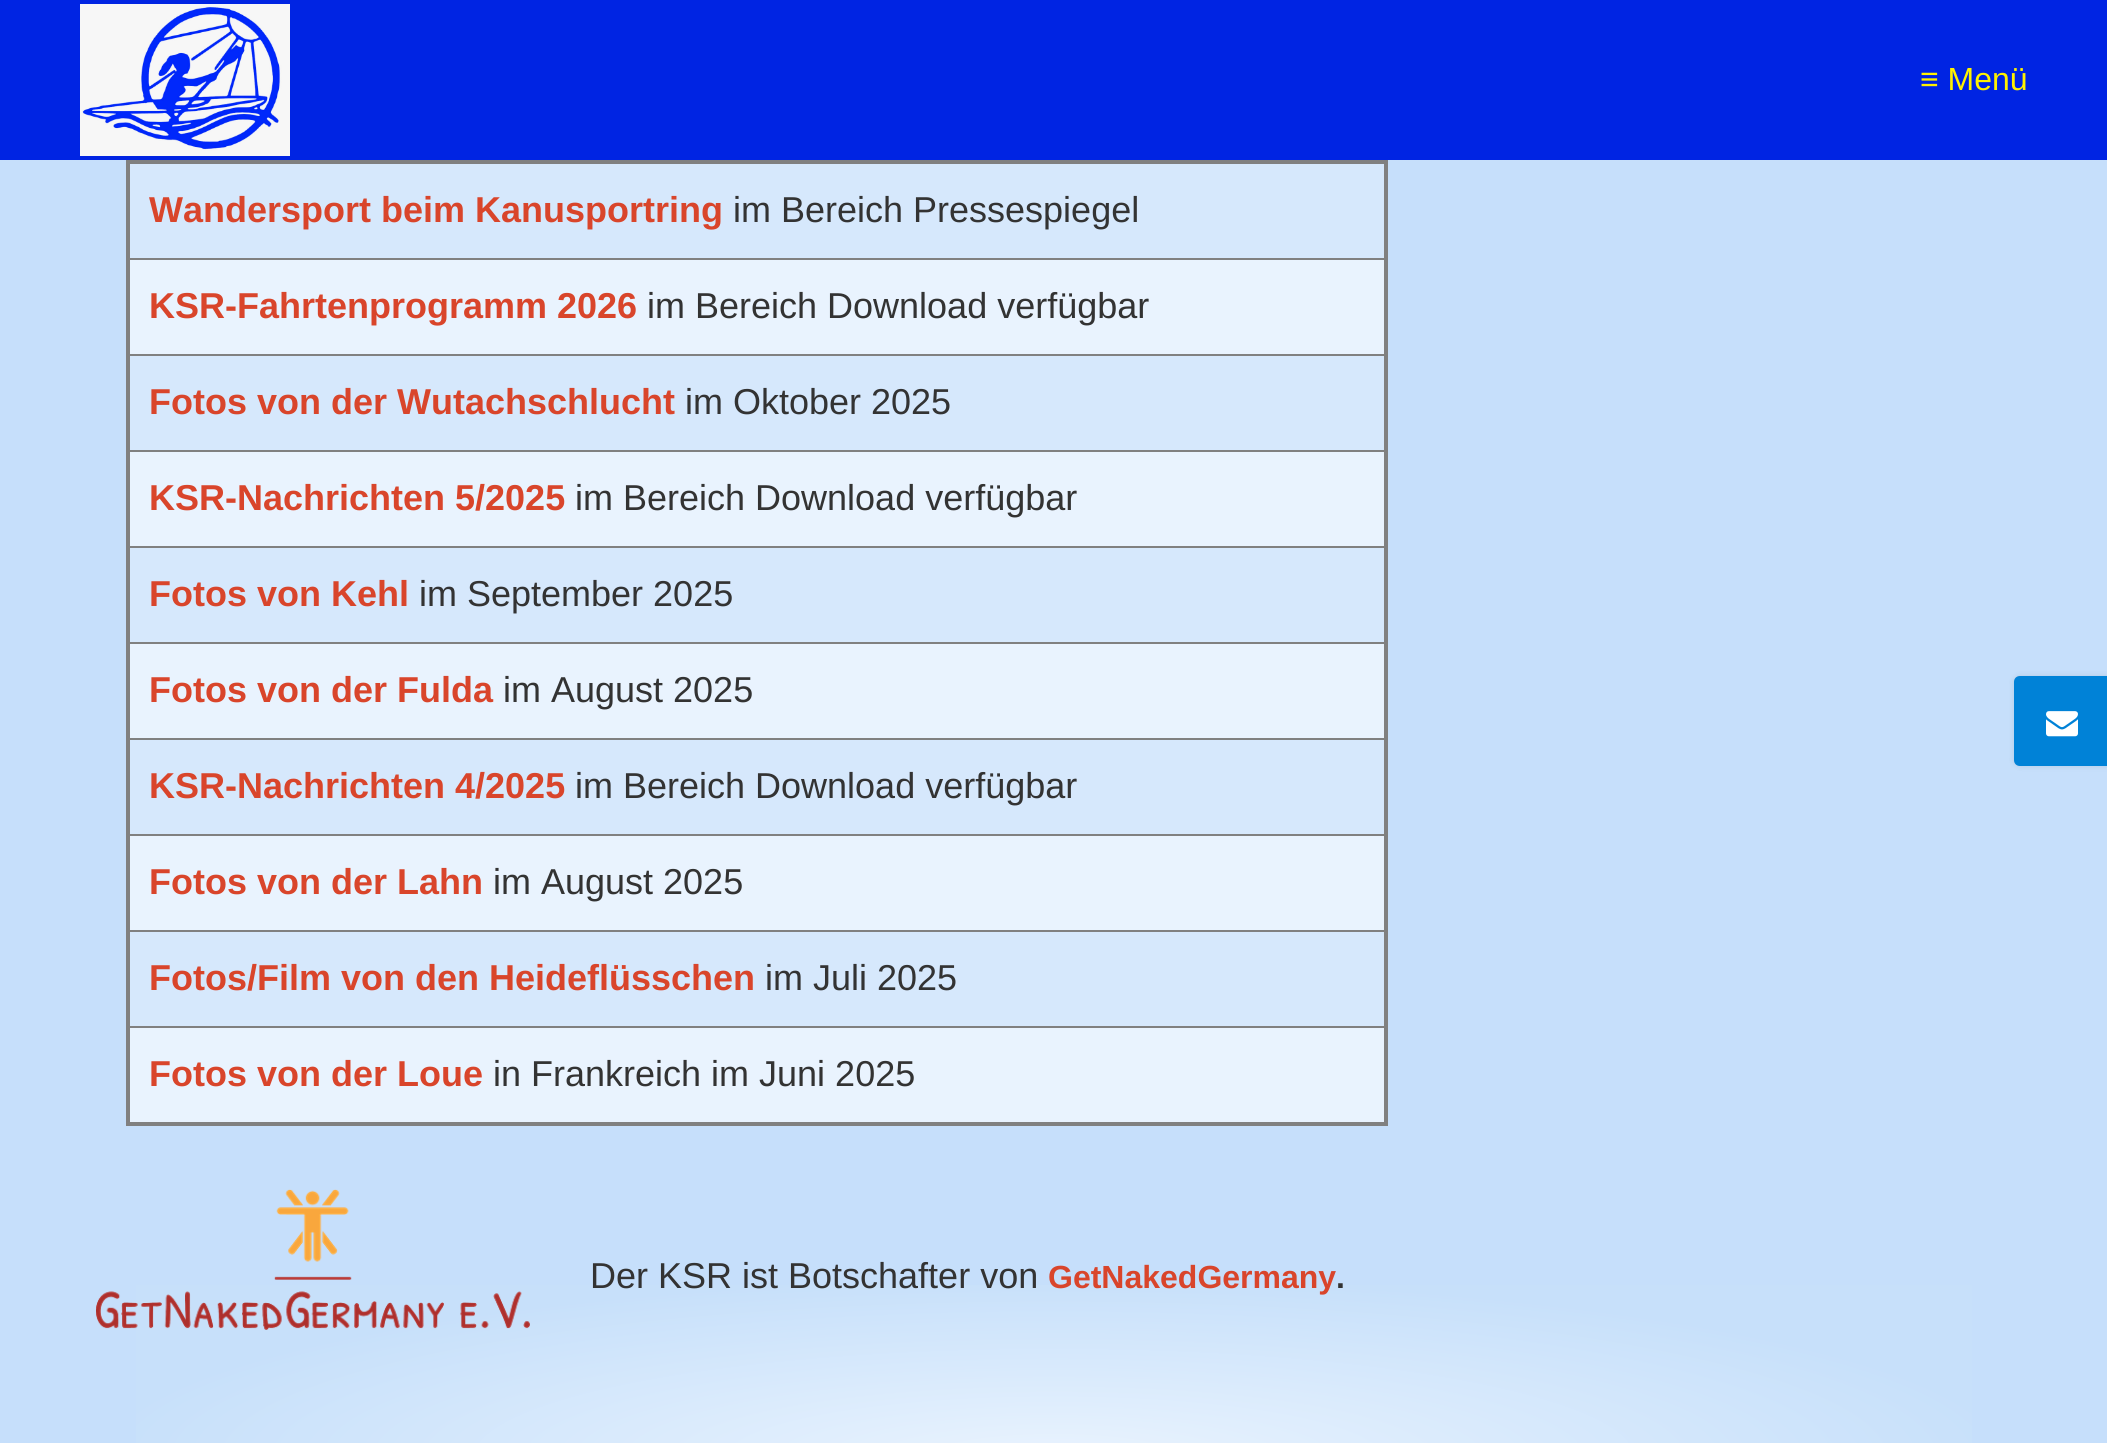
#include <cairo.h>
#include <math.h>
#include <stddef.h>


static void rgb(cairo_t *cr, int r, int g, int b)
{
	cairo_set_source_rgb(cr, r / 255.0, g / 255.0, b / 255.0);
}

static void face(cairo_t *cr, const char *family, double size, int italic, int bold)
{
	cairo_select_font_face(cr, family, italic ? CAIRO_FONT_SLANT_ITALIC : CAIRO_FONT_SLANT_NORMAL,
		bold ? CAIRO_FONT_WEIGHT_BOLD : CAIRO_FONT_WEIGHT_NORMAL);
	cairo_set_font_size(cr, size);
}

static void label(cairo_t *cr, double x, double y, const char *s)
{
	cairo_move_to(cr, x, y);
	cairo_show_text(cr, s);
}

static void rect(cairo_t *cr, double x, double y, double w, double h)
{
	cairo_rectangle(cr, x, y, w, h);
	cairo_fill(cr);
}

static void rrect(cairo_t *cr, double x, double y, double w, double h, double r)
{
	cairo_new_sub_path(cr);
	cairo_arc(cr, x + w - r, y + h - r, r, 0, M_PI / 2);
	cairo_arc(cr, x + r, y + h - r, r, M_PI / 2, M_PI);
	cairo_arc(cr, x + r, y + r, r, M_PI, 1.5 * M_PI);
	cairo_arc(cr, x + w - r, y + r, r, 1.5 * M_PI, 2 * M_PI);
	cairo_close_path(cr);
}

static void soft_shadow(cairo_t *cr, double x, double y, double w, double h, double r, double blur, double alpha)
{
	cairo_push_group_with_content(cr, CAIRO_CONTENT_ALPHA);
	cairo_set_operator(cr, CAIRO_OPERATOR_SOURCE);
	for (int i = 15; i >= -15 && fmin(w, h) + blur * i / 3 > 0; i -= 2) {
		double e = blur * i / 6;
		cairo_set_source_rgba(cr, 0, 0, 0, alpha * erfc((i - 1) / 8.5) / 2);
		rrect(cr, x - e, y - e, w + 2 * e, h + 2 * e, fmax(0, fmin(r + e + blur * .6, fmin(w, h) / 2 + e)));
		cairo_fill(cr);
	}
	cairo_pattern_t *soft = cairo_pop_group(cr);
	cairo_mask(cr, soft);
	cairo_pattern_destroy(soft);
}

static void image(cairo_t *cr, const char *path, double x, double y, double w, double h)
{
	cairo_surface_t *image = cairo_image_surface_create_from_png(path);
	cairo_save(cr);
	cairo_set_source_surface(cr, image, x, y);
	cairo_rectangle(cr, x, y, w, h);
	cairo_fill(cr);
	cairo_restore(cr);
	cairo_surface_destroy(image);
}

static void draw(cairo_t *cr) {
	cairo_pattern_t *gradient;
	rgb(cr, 198, 223, 251);
	cairo_paint(cr);
	rgb(cr, 0, 36, 227);
	rect(cr, 0, 0, 2107, 160);
	image(cr, "image0.png", 80, 4, 210, 152);
	face(cr, "Liberation Sans", 32, 0, 0);
	rgb(cr, 255, 241, 0);
	label(cr, 1920, 90, "≡ Menü");
	gradient = cairo_pattern_create_radial(0, 0, 0, 0, 0, 1);
	cairo_pattern_set_matrix(gradient, &(cairo_matrix_t){1.0 / 1926, 0, 0, 1.0 / 362, -1.0 * 1054 / 1926, -1.0 * 1458 / 362});
	cairo_pattern_add_color_stop_rgba(gradient, 0, 0.914, 0.953, 0.996, 1);
	cairo_pattern_add_color_stop_rgba(gradient, 0.5, 0.78, 0.878, 0.98, 1);
	cairo_set_source(cr, gradient);
	cairo_pattern_destroy(gradient);
	rect(cr, 136, 1285, 1836, 158);
	rgb(cr, 128, 128, 128);
	rect(cr, 126, 160, 1262, 4);
	rect(cr, 126, 258, 1262, 2);
	rect(cr, 126, 354, 1262, 2);
	rect(cr, 126, 450, 1262, 2);
	rect(cr, 126, 546, 1262, 2);
	rect(cr, 126, 642, 1262, 2);
	rect(cr, 126, 738, 1262, 2);
	rect(cr, 126, 834, 1262, 2);
	rect(cr, 126, 930, 1262, 2);
	rect(cr, 126, 1026, 1262, 2);
	rect(cr, 1384, 160, 4, 966);
	rect(cr, 126, 1122, 1262, 4);
	rect(cr, 126, 160, 4, 966);
	rgb(cr, 214, 232, 252);
	rect(cr, 130, 164, 1254, 94);
	face(cr, "Liberation Sans", 36, 0, 1);
	rgb(cr, 217, 69, 43);
	label(cr, 149, 222, "Wandersport beim Kanusportring");
	face(cr, "Liberation Sans", 36, 0, 0);
	rgb(cr, 51, 51, 51);
	label(cr, 733, 222, "im Bereich Pressespiegel");
	rgb(cr, 233, 243, 254);
	rect(cr, 130, 260, 1254, 94);
	face(cr, "Liberation Sans", 36, 0, 1);
	rgb(cr, 217, 69, 43);
	label(cr, 149, 318, "KSR-Fahrtenprogramm 2026");
	face(cr, "Liberation Sans", 36, 0, 0);
	rgb(cr, 51, 51, 51);
	label(cr, 647, 318, "im Bereich Download verfügbar");
	rgb(cr, 214, 232, 252);
	rect(cr, 130, 356, 1254, 94);
	face(cr, "Liberation Sans", 36, 0, 1);
	rgb(cr, 217, 69, 43);
	label(cr, 149, 414, "Fotos von der Wutachschlucht");
	face(cr, "Liberation Sans", 36, 0, 0);
	rgb(cr, 51, 51, 51);
	label(cr, 685, 414, "im Oktober 2025");
	rgb(cr, 233, 243, 254);
	rect(cr, 130, 452, 1254, 94);
	face(cr, "Liberation Sans", 36, 0, 1);
	rgb(cr, 217, 69, 43);
	label(cr, 149, 510, "KSR-Nachrichten 5/2025");
	face(cr, "Liberation Sans", 36, 0, 0);
	rgb(cr, 51, 51, 51);
	label(cr, 575, 510, "im Bereich Download verfügbar");
	rgb(cr, 214, 232, 252);
	rect(cr, 130, 548, 1254, 94);
	face(cr, "Liberation Sans", 36, 0, 1);
	rgb(cr, 217, 69, 43);
	label(cr, 149, 606, "Fotos von Kehl");
	face(cr, "Liberation Sans", 36, 0, 0);
	rgb(cr, 51, 51, 51);
	label(cr, 419, 606, "im September 2025");
	rgb(cr, 233, 243, 254);
	rect(cr, 130, 644, 1254, 94);
	face(cr, "Liberation Sans", 36, 0, 1);
	rgb(cr, 217, 69, 43);
	label(cr, 149, 702, "Fotos von der Fulda");
	face(cr, "Liberation Sans", 36, 0, 0);
	rgb(cr, 51, 51, 51);
	label(cr, 503, 702, "im August 2025");
	rgb(cr, 214, 232, 252);
	rect(cr, 130, 740, 1254, 94);
	face(cr, "Liberation Sans", 36, 0, 1);
	rgb(cr, 217, 69, 43);
	label(cr, 149, 798, "KSR-Nachrichten 4/2025");
	face(cr, "Liberation Sans", 36, 0, 0);
	rgb(cr, 51, 51, 51);
	label(cr, 575, 798, "im Bereich Download verfügbar");
	rgb(cr, 233, 243, 254);
	rect(cr, 130, 836, 1254, 94);
	face(cr, "Liberation Sans", 36, 0, 1);
	rgb(cr, 217, 69, 43);
	label(cr, 149, 894, "Fotos von der Lahn");
	face(cr, "Liberation Sans", 36, 0, 0);
	rgb(cr, 51, 51, 51);
	label(cr, 493, 894, "im August 2025");
	rgb(cr, 214, 232, 252);
	rect(cr, 130, 932, 1254, 94);
	face(cr, "Liberation Sans", 36, 0, 1);
	rgb(cr, 217, 69, 43);
	label(cr, 149, 990, "Fotos/Film von den Heideflüsschen");
	face(cr, "Liberation Sans", 36, 0, 0);
	rgb(cr, 51, 51, 51);
	label(cr, 765, 990, "im Juli 2025");
	rgb(cr, 233, 243, 254);
	rect(cr, 130, 1028, 1254, 94);
	face(cr, "Liberation Sans", 36, 0, 1);
	rgb(cr, 217, 69, 43);
	label(cr, 149, 1086, "Fotos von der Loue");
	face(cr, "Liberation Sans", 36, 0, 0);
	rgb(cr, 51, 51, 51);
	label(cr, 493, 1086, "in Frankreich im Juni 2025");
	image(cr, "image1.png", 96, 1189, 434, 141);
	label(cr, 590, 1288, "Der KSR ist Botschafter von");
	face(cr, "Liberation Sans", 32, 0, 1);
	rgb(cr, 217, 69, 43);
	label(cr, 1048, 1288, "GetNakedGermany");
	rgb(cr, 51, 51, 51);
	label(cr, 1336, 1288, ".");
	rgb(cr, 0, 0, 0);
	soft_shadow(cr, 2014, 676, 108, 90, 6, 3, 0.1);
	rgb(cr, 0, 130, 215);
	cairo_new_path(cr);
	cairo_move_to(cr, 2020, 677);
	cairo_line_to(cr, 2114, 677);
	cairo_line_to(cr, 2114, 765);
	cairo_line_to(cr, 2020, 765);
	cairo_curve_to(cr, 2017, 765, 2015, 763, 2015, 760);
	cairo_line_to(cr, 2015, 682);
	cairo_curve_to(cr, 2015, 679, 2017, 677, 2020, 677);
	cairo_close_path(cr);
	cairo_fill_preserve(cr);
	cairo_stroke(cr);
	image(cr, "image2.png", 2046, 711, 32, 26);
}

int main(void) {
	cairo_surface_t *surface = cairo_image_surface_create(CAIRO_FORMAT_RGB24, 2107, 1443);
	cairo_t *cr = cairo_create(surface);
	cairo_font_options_t *options = cairo_font_options_create();
	cairo_font_options_set_hint_metrics(options, CAIRO_HINT_METRICS_OFF);
	cairo_font_options_set_hint_style(options, CAIRO_HINT_STYLE_NONE);
	cairo_set_font_options(cr, options);
	cairo_set_miter_limit(cr, 4);
	draw(cr);
	cairo_surface_write_to_png(surface, "render.png");
	cairo_font_options_destroy(options);
	cairo_destroy(cr);
	cairo_surface_destroy(surface);
	return 0;
}
